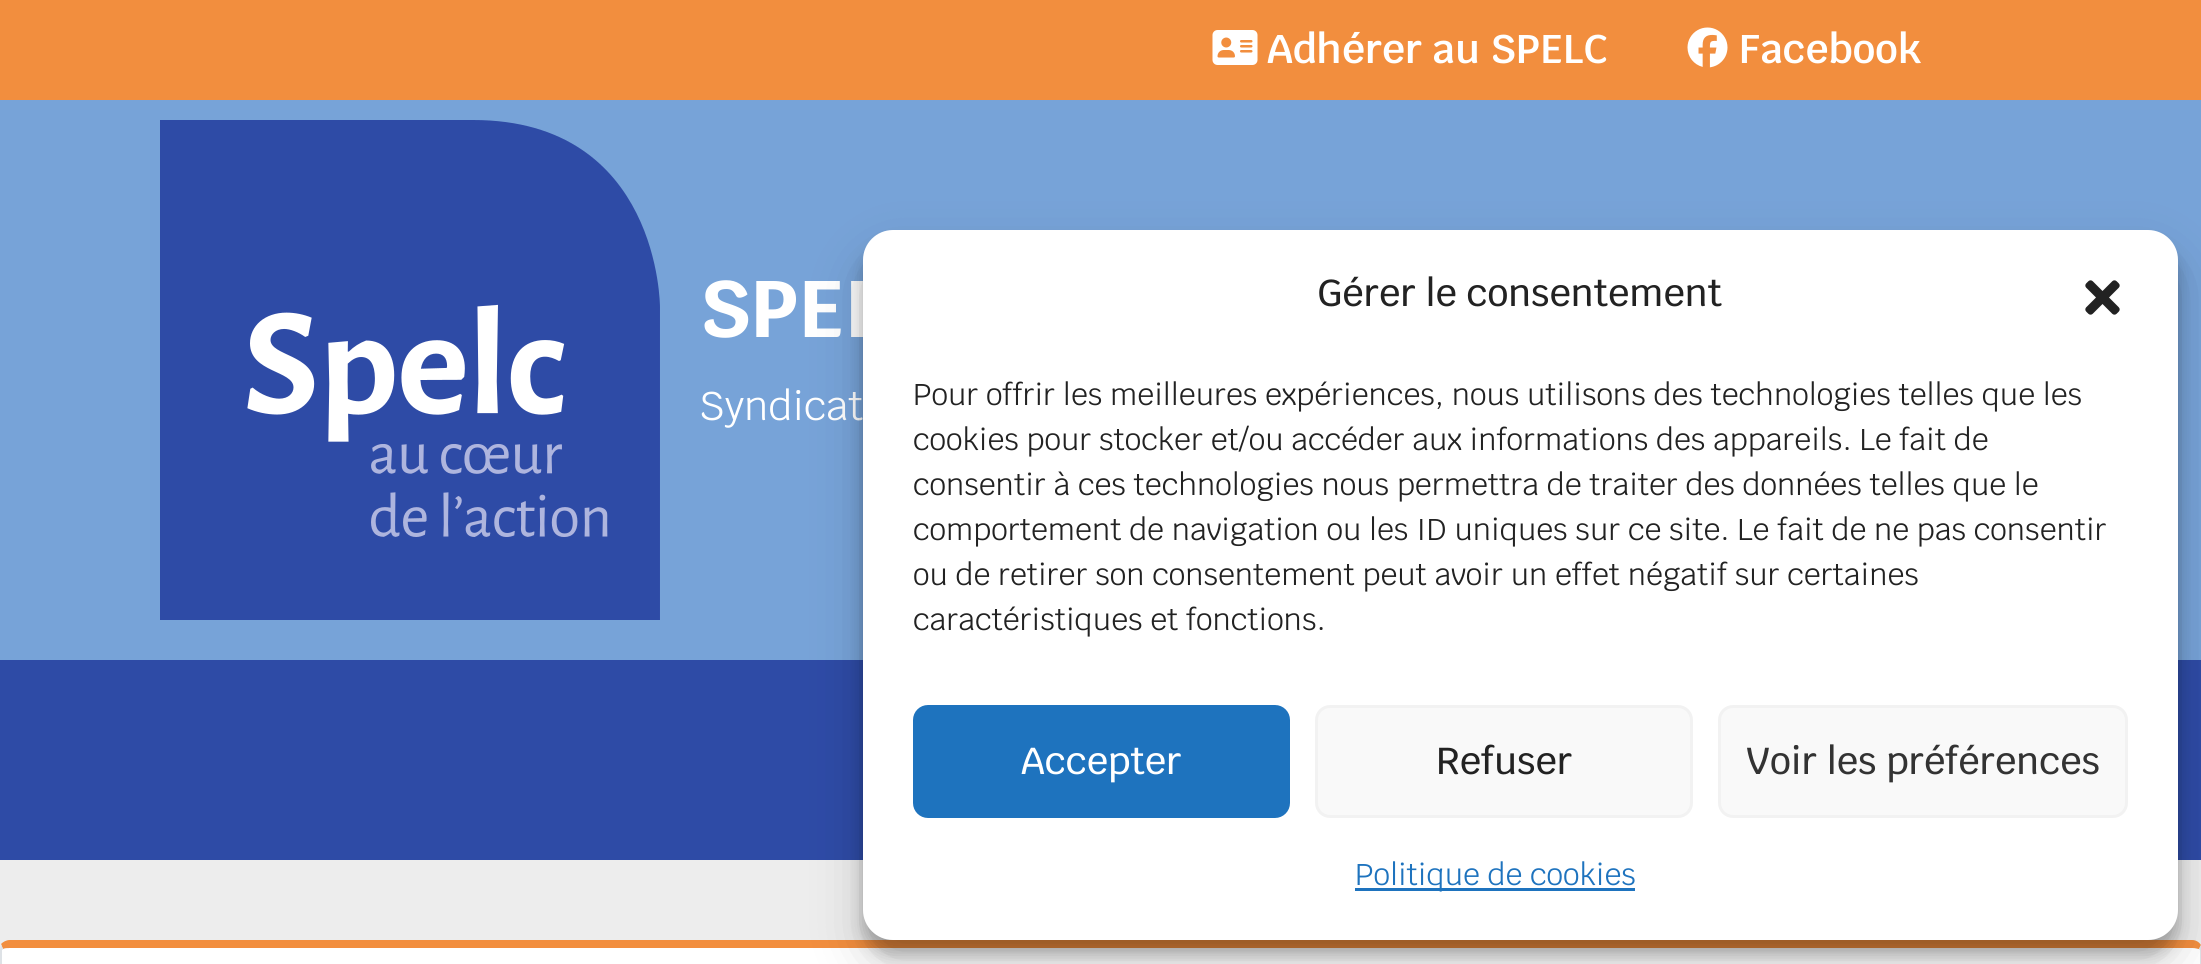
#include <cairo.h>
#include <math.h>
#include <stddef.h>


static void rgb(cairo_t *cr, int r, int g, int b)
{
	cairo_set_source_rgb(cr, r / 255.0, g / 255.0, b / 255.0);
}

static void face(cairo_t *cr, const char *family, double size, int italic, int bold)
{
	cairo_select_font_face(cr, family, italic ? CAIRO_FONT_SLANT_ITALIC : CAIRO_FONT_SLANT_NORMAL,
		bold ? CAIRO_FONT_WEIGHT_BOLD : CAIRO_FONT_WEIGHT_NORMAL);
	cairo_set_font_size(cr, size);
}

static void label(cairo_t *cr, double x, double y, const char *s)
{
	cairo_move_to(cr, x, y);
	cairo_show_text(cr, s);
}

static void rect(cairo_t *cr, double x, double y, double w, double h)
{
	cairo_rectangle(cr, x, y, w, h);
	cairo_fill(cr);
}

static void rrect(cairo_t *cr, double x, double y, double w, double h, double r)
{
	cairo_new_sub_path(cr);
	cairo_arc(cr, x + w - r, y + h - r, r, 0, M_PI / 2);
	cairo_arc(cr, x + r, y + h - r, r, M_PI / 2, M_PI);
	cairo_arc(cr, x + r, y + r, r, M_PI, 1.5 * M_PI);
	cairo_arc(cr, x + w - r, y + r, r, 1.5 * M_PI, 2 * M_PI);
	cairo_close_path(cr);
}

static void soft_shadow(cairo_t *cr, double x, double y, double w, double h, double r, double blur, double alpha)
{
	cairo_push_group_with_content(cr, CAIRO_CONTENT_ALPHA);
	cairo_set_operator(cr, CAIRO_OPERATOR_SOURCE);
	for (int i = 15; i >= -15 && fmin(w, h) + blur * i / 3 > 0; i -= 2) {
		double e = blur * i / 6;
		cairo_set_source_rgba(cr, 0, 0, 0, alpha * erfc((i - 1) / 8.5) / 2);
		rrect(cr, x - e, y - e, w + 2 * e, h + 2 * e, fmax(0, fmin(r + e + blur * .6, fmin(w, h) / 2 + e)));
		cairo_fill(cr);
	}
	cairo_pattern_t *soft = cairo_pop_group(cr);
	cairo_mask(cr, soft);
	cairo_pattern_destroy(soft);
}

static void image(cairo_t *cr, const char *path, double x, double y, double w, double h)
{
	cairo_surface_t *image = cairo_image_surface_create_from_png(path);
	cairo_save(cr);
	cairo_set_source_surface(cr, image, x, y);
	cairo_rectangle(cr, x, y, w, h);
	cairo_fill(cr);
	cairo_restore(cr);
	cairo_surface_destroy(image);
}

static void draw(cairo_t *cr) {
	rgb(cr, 237, 237, 237);
	cairo_paint(cr);
	rgb(cr, 242, 142, 62);
	rect(cr, 0, 0, 2201, 100);
	image(cr, "image0.png", 1212, 30, 46, 35);
	face(cr, "Krub SemiBold", 40, 0, 0);
	rgb(cr, 255, 255, 255);
	label(cr, 1267, 63, "Adhérer au SPELC");
	image(cr, "image1.png", 1687, 27, 41, 41);
	label(cr, 1739, 63, "Facebook");
	rgb(cr, 46, 75, 166);
	rect(cr, 0, 660, 2201, 200);
	rgb(cr, 119, 163, 216);
	rect(cr, 0, 100, 2201, 560);
	image(cr, "image2.png", 160, 120, 500, 500);
	face(cr, "Krub", 80, 0, 1);
	rgb(cr, 255, 255, 255);
	label(cr, 699, 337, "SPEL");
	face(cr, "Krub", 40, 0, 0);
	label(cr, 699, 420, "Syndicat");
	cairo_new_path(cr);
	cairo_move_to(cr, 10, 948);
	cairo_line_to(cr, 2192, 948);
	cairo_curve_to(cr, 2197, 948, 2200, 949, 2200, 950);
	cairo_line_to(cr, 2200, 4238);
	cairo_curve_to(cr, 2200, 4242, 2197, 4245, 2192, 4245);
	cairo_line_to(cr, 10, 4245);
	cairo_curve_to(cr, 6, 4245, 2, 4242, 2, 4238);
	cairo_line_to(cr, 2, 950);
	cairo_curve_to(cr, 2, 949, 6, 948, 10, 948);
	cairo_close_path(cr);
	cairo_fill(cr);
	rgb(cr, 242, 142, 62);
	cairo_new_path(cr);
	cairo_move_to(cr, 10, 940);
	cairo_curve_to(cr, 6, 940, 3, 942, 1, 944);
	cairo_line_to(cr, 3, 949);
	cairo_curve_to(cr, 4, 948, 7, 948, 10, 948);
	cairo_line_to(cr, 2192, 948);
	cairo_curve_to(cr, 2196, 948, 2198, 949, 2199, 949);
	cairo_line_to(cr, 2201, 945);
	cairo_curve_to(cr, 2199, 942, 2196, 940, 2192, 940);
	cairo_close_path(cr);
	cairo_fill(cr);
	rgb(cr, 222, 226, 230);
	cairo_new_path(cr);
	cairo_move_to(cr, 2201, 945);
	cairo_curve_to(cr, 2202, 946, 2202, 948, 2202, 950);
	cairo_line_to(cr, 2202, 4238);
	cairo_curve_to(cr, 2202, 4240, 2201, 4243, 2200, 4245);
	cairo_line_to(cr, 2198, 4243);
	cairo_curve_to(cr, 2199, 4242, 2200, 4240, 2200, 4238);
	cairo_line_to(cr, 2200, 950);
	cairo_line_to(cr, 2199, 949);
	cairo_close_path(cr);
	cairo_fill(cr);
	cairo_new_path(cr);
	cairo_move_to(cr, 0, 950);
	cairo_line_to(cr, 0, 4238);
	cairo_curve_to(cr, 0, 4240, 1, 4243, 3, 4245);
	cairo_line_to(cr, 4, 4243);
	cairo_curve_to(cr, 3, 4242, 2, 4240, 2, 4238);
	cairo_line_to(cr, 2, 950);
	cairo_line_to(cr, 3, 949);
	cairo_line_to(cr, 1, 944);
	cairo_curve_to(cr, 1, 946, 0, 948, 0, 950);
	cairo_close_path(cr);
	cairo_fill(cr);
	rgb(cr, 0, 0, 0);
	soft_shadow(cr, 863, 245, 1315, 710, 30, 7.5, 0.23);
	soft_shadow(cr, 863, 255, 1315, 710, 30, 25, 0.19);
	rgb(cr, 255, 255, 255);
	rrect(cr, 863, 230, 1315, 710, 30);
	cairo_fill(cr);
	face(cr, "Krub Medium", 37.5, 0, 0);
	rgb(cr, 34, 34, 34);
	label(cr, 1317, 306, "Gérer le consentement");
	image(cr, "image3.png", 2085, 280, 35, 35);
	face(cr, "Krub", 30, 0, 0);
	label(cr, 913, 405, "Pour offrir les meilleures expériences, nous utilisons des technologies telles que les");
	label(cr, 913, 450, "cookies pour stocker et/ou accéder aux informations des appareils. Le fait de");
	label(cr, 913, 495, "consentir à ces technologies nous permettra de traiter des données telles que le");
	label(cr, 913, 540, "comportement de navigation ou les ID uniques sur ce site. Le fait de ne pas consentir");
	label(cr, 913, 585, "ou de retirer son consentement peut avoir un effet négatif sur certaines");
	label(cr, 913, 630, "caractéristiques et fonctions.");
	rgb(cr, 30, 115, 190);
	rrect(cr, 914.5, 706.5, 374, 110, 13.5);
	cairo_fill_preserve(cr);
	cairo_set_line_width(cr, 3);
	cairo_stroke(cr);
	face(cr, "Krub Medium", 37.5, 0, 0);
	rgb(cr, 255, 255, 255);
	label(cr, 1021, 774, "Accepter");
	rgb(cr, 249, 249, 249);
	rrect(cr, 1316.5, 706.5, 375, 110, 13.5);
	cairo_fill_preserve(cr);
	rgb(cr, 242, 242, 242);
	cairo_stroke(cr);
	rgb(cr, 34, 34, 34);
	label(cr, 1436, 774, "Refuser");
	rgb(cr, 249, 249, 249);
	rrect(cr, 1719.5, 706.5, 407, 110, 13.5);
	cairo_fill_preserve(cr);
	rgb(cr, 242, 242, 242);
	cairo_stroke(cr);
	rgb(cr, 51, 51, 51);
	label(cr, 1746, 774, "Voir les préférences");
	rgb(cr, 30, 115, 190);
	rect(cr, 1355, 888, 280, 3);
	face(cr, "Krub", 30, 0, 0);
	label(cr, 1355, 885, "Politique de cookies");
}

int main(void) {
	cairo_surface_t *surface = cairo_image_surface_create(CAIRO_FORMAT_RGB24, 2201, 964);
	cairo_t *cr = cairo_create(surface);
	cairo_font_options_t *options = cairo_font_options_create();
	cairo_font_options_set_hint_metrics(options, CAIRO_HINT_METRICS_OFF);
	cairo_font_options_set_hint_style(options, CAIRO_HINT_STYLE_NONE);
	cairo_set_font_options(cr, options);
	cairo_set_miter_limit(cr, 4);
	draw(cr);
	cairo_surface_write_to_png(surface, "render.png");
	cairo_font_options_destroy(options);
	cairo_destroy(cr);
	cairo_surface_destroy(surface);
	return 0;
}
